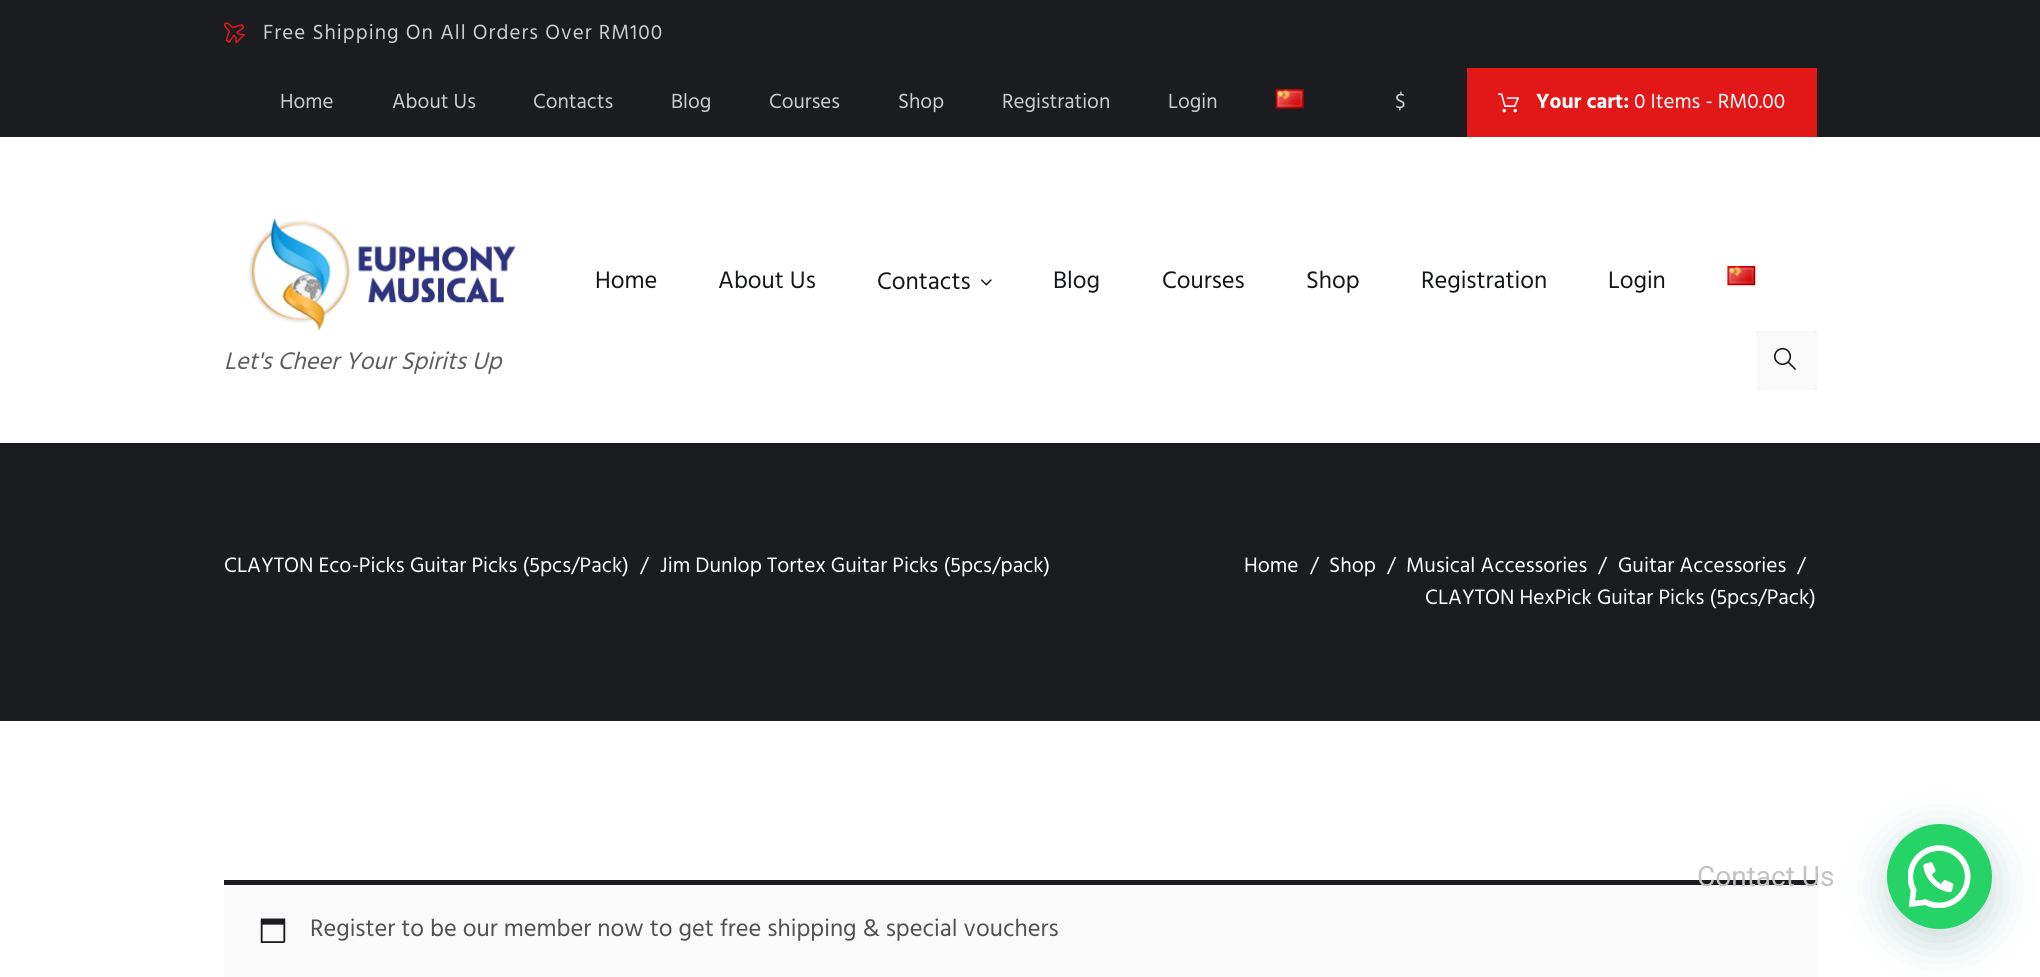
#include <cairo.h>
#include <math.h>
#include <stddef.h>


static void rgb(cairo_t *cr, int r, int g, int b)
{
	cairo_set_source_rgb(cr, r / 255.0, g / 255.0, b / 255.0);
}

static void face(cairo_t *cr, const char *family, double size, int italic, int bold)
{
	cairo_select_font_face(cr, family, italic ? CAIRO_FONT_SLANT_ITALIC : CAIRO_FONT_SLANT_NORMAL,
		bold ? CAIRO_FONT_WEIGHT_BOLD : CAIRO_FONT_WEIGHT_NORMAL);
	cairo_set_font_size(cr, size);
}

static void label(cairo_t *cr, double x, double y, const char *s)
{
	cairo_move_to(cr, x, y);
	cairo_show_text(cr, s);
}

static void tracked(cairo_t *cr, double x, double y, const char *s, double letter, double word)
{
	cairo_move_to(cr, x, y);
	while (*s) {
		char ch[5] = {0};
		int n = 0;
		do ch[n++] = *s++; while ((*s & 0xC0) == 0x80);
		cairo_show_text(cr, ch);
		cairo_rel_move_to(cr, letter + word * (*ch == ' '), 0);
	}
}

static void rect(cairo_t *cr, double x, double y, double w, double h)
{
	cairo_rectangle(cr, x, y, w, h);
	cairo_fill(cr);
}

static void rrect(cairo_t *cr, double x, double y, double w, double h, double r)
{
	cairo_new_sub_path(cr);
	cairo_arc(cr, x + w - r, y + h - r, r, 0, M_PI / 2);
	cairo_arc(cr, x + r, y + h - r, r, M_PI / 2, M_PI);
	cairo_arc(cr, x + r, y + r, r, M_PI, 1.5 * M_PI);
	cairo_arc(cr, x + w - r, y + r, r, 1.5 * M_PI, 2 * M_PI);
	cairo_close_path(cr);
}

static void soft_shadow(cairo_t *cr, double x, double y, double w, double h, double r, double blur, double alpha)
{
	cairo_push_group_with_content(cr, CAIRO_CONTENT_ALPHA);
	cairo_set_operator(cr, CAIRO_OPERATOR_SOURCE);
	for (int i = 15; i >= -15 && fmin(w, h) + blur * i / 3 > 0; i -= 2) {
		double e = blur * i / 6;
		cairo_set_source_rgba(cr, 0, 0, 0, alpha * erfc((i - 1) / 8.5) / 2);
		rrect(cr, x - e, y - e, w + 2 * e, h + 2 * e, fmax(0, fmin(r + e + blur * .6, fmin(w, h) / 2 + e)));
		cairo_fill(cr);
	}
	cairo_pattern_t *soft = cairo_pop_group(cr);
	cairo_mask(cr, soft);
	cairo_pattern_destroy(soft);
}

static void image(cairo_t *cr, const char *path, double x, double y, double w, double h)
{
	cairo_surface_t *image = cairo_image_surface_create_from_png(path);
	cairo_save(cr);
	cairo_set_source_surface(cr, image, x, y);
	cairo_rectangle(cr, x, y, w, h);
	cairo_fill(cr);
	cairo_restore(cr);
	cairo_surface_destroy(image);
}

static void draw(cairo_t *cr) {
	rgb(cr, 255, 255, 255);
	cairo_paint(cr);
	rgb(cr, 243, 243, 243);
	rect(cr, 1757, 331, 60, 59);
	rgb(cr, 26, 28, 31);
	rect(cr, 0, 0, 2040, 137);
	image(cr, "image0.png", 224, 22, 21, 22);
	face(cr, "Hind", 21, 0, 0);
	rgb(cr, 204, 204, 204);
	tracked(cr, 263, 39, "Free Shipping On All Orders Over RM100", 1.05, 0);
	label(cr, 280, 108, "Home");
	label(cr, 392, 108, "About Us");
	label(cr, 533, 108, "Contacts");
	label(cr, 671, 108, "Blog");
	label(cr, 769, 108, "Courses");
	label(cr, 898, 108, "Shop");
	label(cr, 1002, 108, "Registration");
	label(cr, 1168, 108, "Login");
	image(cr, "image1.png", 1275, 89, 29, 20);
	label(cr, 1395, 108, "$");
	rgb(cr, 226, 24, 24);
	rect(cr, 1467, 68, 350, 69);
	image(cr, "image2.png", 1498, 93, 21, 20);
	face(cr, "Hind", 21, 0, 1);
	rgb(cr, 255, 255, 255);
	label(cr, 1536, 108, "Your cart:");
	face(cr, "Hind", 21, 0, 0);
	label(cr, 1634, 108, "0 Items - RM0.00");
	face(cr, "Hind", 24.5, 0, 0);
	rgb(cr, 20, 22, 24);
	label(cr, 595, 288, "Home");
	label(cr, 718, 288, "About Us");
	label(cr, 877, 289, "Contacts");
	image(cr, "image3.png", 980, 279, 12, 7);
	label(cr, 1053, 288, "Blog");
	label(cr, 1162, 288, "Courses");
	label(cr, 1306, 288, "Shop");
	label(cr, 1421, 288, "Registration");
	label(cr, 1608, 288, "Login");
	image(cr, "image4.png", 1727, 266, 29, 20);
	rgb(cr, 250, 250, 250);
	rrect(cr, 1757, 331, 60, 59, 7);
	cairo_fill(cr);
	image(cr, "image5.png", 1774, 347, 22, 23);
	image(cr, "image6.png", 248, 218, 268, 113);
	face(cr, "Hind", 24.5, 1, 0);
	rgb(cr, 92, 93, 94);
	label(cr, 224, 369, "Let's Cheer Your Spirits Up");
	rgb(cr, 26, 28, 31);
	rect(cr, 0, 445, 2040, 276);
	rgb(cr, 23, 25, 28);
	rect(cr, 0, 443, 2040, 2);
	face(cr, "Hind", 21.4, 0, 0);
	rgb(cr, 255, 255, 255);
	label(cr, 224, 572, "CLAYTON Eco-Picks Guitar Picks (5pcs/Pack)");
	label(cr, 640, 572, "/");
	label(cr, 660, 572, "Jim Dunlop Tortex Guitar Picks (5pcs/pack)");
	label(cr, 1244, 572, "Home");
	label(cr, 1310, 572, "/");
	label(cr, 1329, 572, "Shop");
	label(cr, 1387, 572, "/");
	label(cr, 1406, 572, "Musical Accessories");
	label(cr, 1598, 572, "/");
	label(cr, 1618, 572, "Guitar Accessories");
	label(cr, 1797, 572, "/");
	label(cr, 1425, 604, "CLAYTON HexPick Guitar Picks (5pcs/Pack)");
	rgb(cr, 250, 250, 250);
	rect(cr, 224, 885, 1593, 92);
	rgb(cr, 26, 28, 31);
	rect(cr, 224, 880, 1593, 5);
	image(cr, "image7.png", 260, 918, 26, 25);
	face(cr, "Hind", 24.5, 0, 0);
	rgb(cr, 81, 81, 81);
	label(cr, 310, 936, "Register to be our member now to get free shipping & special vouchers");
	rgb(cr, 7, 94, 84);
	soft_shadow(cr, 1888, 835, 105, 105, 52.5, 21, 0.24);
	rgb(cr, 37, 211, 102);
	cairo_arc(cr, 1939.5, 876.5, 52.5, 0, 2 * M_PI);
	cairo_fill(cr);
	image(cr, "image8.png", 1908, 845, 63, 63);
	face(cr, "Roboto", 28, 0, 0);
	rgb(cr, 194, 195, 195);
	label(cr, 1697, 886, "Contact Us");
}

int main(void) {
	cairo_surface_t *surface = cairo_image_surface_create(CAIRO_FORMAT_RGB24, 2040, 977);
	cairo_t *cr = cairo_create(surface);
	cairo_font_options_t *options = cairo_font_options_create();
	cairo_font_options_set_hint_metrics(options, CAIRO_HINT_METRICS_OFF);
	cairo_font_options_set_hint_style(options, CAIRO_HINT_STYLE_NONE);
	cairo_set_font_options(cr, options);
	cairo_set_miter_limit(cr, 4);
	draw(cr);
	cairo_surface_write_to_png(surface, "render.png");
	cairo_font_options_destroy(options);
	cairo_destroy(cr);
	cairo_surface_destroy(surface);
	return 0;
}
